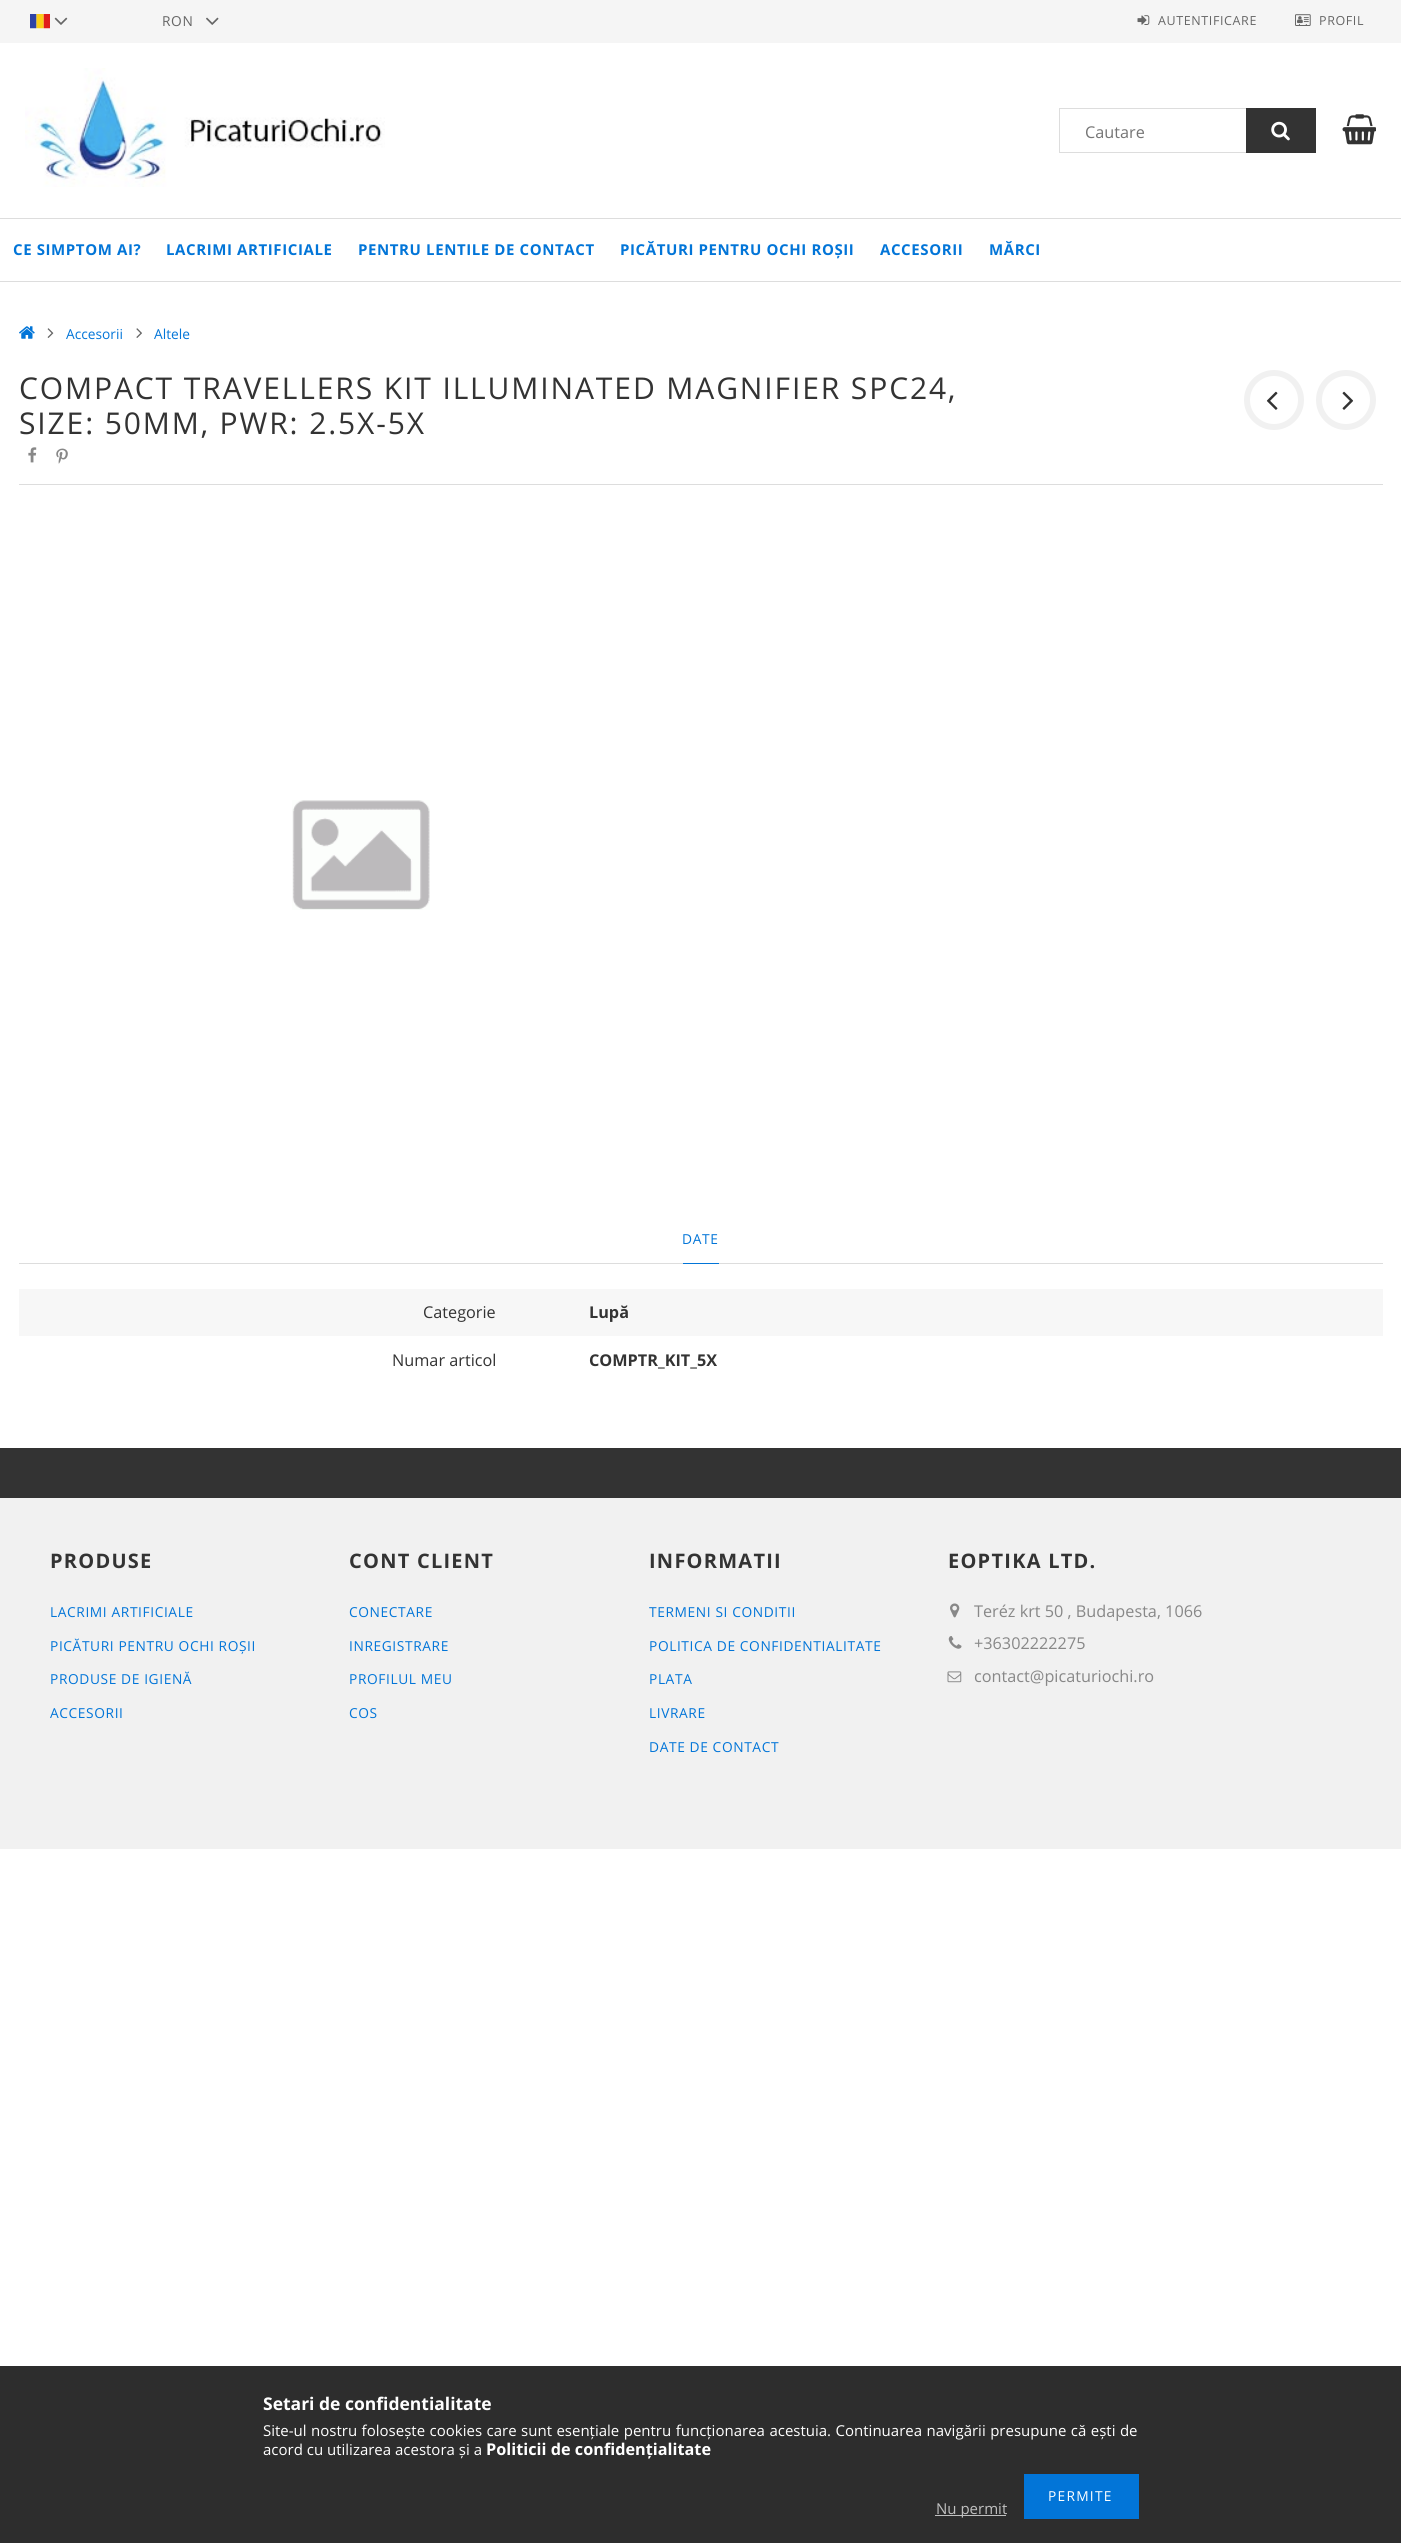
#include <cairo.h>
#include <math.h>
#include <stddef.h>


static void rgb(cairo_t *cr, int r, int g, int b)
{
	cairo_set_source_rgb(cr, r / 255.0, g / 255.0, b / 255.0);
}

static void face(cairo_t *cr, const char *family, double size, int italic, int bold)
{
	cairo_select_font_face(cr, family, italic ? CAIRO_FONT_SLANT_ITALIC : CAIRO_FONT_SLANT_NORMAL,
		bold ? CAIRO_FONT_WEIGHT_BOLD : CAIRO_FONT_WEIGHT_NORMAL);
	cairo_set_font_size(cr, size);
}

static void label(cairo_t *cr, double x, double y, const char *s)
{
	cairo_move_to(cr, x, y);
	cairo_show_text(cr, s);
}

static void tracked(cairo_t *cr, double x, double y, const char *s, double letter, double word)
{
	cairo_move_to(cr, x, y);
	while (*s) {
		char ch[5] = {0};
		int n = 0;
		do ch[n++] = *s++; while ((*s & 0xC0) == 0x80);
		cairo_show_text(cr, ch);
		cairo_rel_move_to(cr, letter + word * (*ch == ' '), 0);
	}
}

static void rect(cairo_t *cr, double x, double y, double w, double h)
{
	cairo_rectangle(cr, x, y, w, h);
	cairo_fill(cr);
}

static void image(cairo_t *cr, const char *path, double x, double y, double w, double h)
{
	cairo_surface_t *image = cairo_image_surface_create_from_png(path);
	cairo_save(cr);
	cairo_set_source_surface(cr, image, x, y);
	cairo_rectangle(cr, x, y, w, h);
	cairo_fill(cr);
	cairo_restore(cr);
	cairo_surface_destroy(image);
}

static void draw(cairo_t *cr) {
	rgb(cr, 255, 255, 255);
	cairo_paint(cr);
	rgb(cr, 245, 245, 245);
	rect(cr, 0, 0, 1401, 43);
	image(cr, "image0.png", 30, 14, 20, 15);
	image(cr, "image1.png", 54, 17, 14, 8);
	face(cr, "Open Sans", 13.75, 0, 0);
	rgb(cr, 102, 102, 102);
	tracked(cr, 162, 26, "RON", 0.6, 0);
	image(cr, "image2.png", 206, 17, 13, 8);
	image(cr, "image3.png", 1137, 15, 13, 10);
	face(cr, "Open Sans", 12.5, 0, 0);
	tracked(cr, 1158, 25, "AUTENTIFICARE", 0.6, 0);
	image(cr, "image4.png", 1295, 14, 16, 12);
	tracked(cr, 1319, 25, "PROFIL", 0.6, 0);
	image(cr, "image5.png", 25, 68, 360, 119);
	cairo_rectangle(cr, 1059.5, 108.5, 256, 44);
	rgb(cr, 221, 221, 221);
	cairo_set_line_width(cr, 1);
	cairo_stroke(cr);
	face(cr, "Open Sans", 16.25, 0, 0);
	rgb(cr, 117, 117, 117);
	label(cr, 1085, 138, "Cautare");
	rgb(cr, 51, 51, 51);
	rect(cr, 1246, 108, 70, 45);
	image(cr, "image6.png", 1271, 121, 19, 20);
	image(cr, "image7.png", 1342, 114, 34, 31);
	rgb(cr, 221, 221, 221);
	rect(cr, 0, 218, 1401, 1);
	rect(cr, 0, 281, 1401, 1);
	face(cr, "Open Sans", 15, 0, 1);
	rgb(cr, 2, 117, 216);
	tracked(cr, 13, 255, "CE SIMPTOM AI?", 0.6, 0);
	tracked(cr, 166, 255, "LACRIMI ARTIFICIALE", 0.6, 0);
	tracked(cr, 358, 255, "PENTRU LENTILE DE CONTACT", 0.6, 0);
	tracked(cr, 620, 255, "PICĂTURI PENTRU OCHI ROȘII", 0.6, 0);
	tracked(cr, 880, 255, "ACCESORII", 0.6, 0);
	tracked(cr, 989, 255, "MĂRCI", 0.6, 0);
	image(cr, "image8.png", 19, 326, 16, 13);
	image(cr, "image9.png", 47, 328, 7, 10);
	face(cr, "Open Sans", 13.75, 0, 0);
	label(cr, 66, 339, "Accesorii");
	image(cr, "image10.png", 136, 328, 6, 10);
	label(cr, 154, 339, "Altele");
	rgb(cr, 221, 221, 221);
	rect(cr, 19, 484, 1364, 1);
	face(cr, "Open Sans", 30, 0, 0);
	rgb(cr, 51, 51, 51);
	tracked(cr, 19, 399, "COMPACT TRAVELLERS KIT ILLUMINATED MAGNIFIER SPC24,", 1.88, 0);
	tracked(cr, 19, 434, "SIZE: 50MM, PWR: 2.5X-5X", 1.88, 0);
	image(cr, "image11.png", 28, 447, 9, 16);
	image(cr, "image12.png", 56, 448, 12, 16);
	cairo_arc(cr, 1274, 400, 27, 0, 2 * M_PI);
	rgb(cr, 241, 241, 241);
	cairo_set_line_width(cr, 6);
	cairo_stroke(cr);
	image(cr, "image13.png", 1266, 391, 12, 19);
	cairo_arc(cr, 1346, 400, 27, 0, 2 * M_PI);
	cairo_stroke(cr);
	image(cr, "image14.png", 1342, 391, 12, 19);
	image(cr, "image15.png", 292, 800, 138, 110);
	rgb(cr, 221, 221, 221);
	rect(cr, 19, 1263, 1364, 1);
	rgb(cr, 2, 117, 216);
	rect(cr, 683, 1263, 36, 1);
	face(cr, "Open Sans", 13.75, 0, 0);
	tracked(cr, 682, 1244, "DATE", 0.6, 0);
	rgb(cr, 247, 247, 247);
	rect(cr, 19, 1289, 1364, 47);
	face(cr, "Open Sans", 16.25, 0, 0);
	rgb(cr, 51, 51, 51);
	label(cr, 423, 1318, "Categorie");
	face(cr, "Open Sans", 16.25, 0, 1);
	label(cr, 589, 1318, "Lupă");
	face(cr, "Open Sans", 16.25, 0, 0);
	label(cr, 392, 1366, "Numar articol");
	face(cr, "Open Sans", 16.25, 0, 1);
	label(cr, 589, 1366, "COMPTR_KIT_5X");
	rect(cr, 0, 1448, 1401, 50);
	rgb(cr, 241, 241, 241);
	rect(cr, 0, 1498, 1401, 351);
	face(cr, "Open Sans", 20, 0, 1);
	rgb(cr, 51, 51, 51);
	tracked(cr, 50, 1568, "PRODUSE", 1.25, 0);
	face(cr, "Open Sans", 13.75, 0, 0);
	rgb(cr, 2, 117, 216);
	tracked(cr, 50, 1617, "LACRIMI ARTIFICIALE", 0.6, 0);
	tracked(cr, 50, 1651, "PICĂTURI PENTRU OCHI ROȘII", 0.6, 0);
	tracked(cr, 50, 1684, "PRODUSE DE IGIENĂ", 0.6, 0);
	tracked(cr, 50, 1718, "ACCESORII", 0.6, 0);
	face(cr, "Open Sans", 20, 0, 1);
	rgb(cr, 51, 51, 51);
	tracked(cr, 349, 1568, "CONT CLIENT", 1.25, 0);
	face(cr, "Open Sans", 13.75, 0, 0);
	rgb(cr, 2, 117, 216);
	tracked(cr, 349, 1617, "CONECTARE", 0.6, 0);
	tracked(cr, 349, 1651, "INREGISTRARE", 0.6, 0);
	tracked(cr, 349, 1684, "PROFILUL MEU", 0.6, 0);
	tracked(cr, 349, 1718, "COS", 0.6, 0);
	face(cr, "Open Sans", 20, 0, 1);
	rgb(cr, 51, 51, 51);
	tracked(cr, 649, 1568, "INFORMATII", 1.25, 0);
	face(cr, "Open Sans", 13.75, 0, 0);
	rgb(cr, 2, 117, 216);
	tracked(cr, 649, 1617, "TERMENI SI CONDITII", 0.6, 0);
	tracked(cr, 649, 1651, "POLITICA DE CONFIDENTIALITATE", 0.6, 0);
	tracked(cr, 649, 1684, "PLATA", 0.6, 0);
	tracked(cr, 649, 1718, "LIVRARE", 0.6, 0);
	tracked(cr, 649, 1752, "DATE DE CONTACT", 0.6, 0);
	face(cr, "Open Sans", 20, 0, 1);
	rgb(cr, 51, 51, 51);
	tracked(cr, 948, 1568, "EOPTIKA LTD.", 1.25, 0);
	image(cr, "image16.png", 950, 1603, 10, 15);
	face(cr, "Open Sans", 16.25, 0, 0);
	rgb(cr, 136, 136, 136);
	label(cr, 974, 1617, "Teréz krt 50 , Budapesta, 1066");
	image(cr, "image17.png", 948, 1636, 14, 13);
	label(cr, 974, 1649, "+36302222275");
	image(cr, "image18.png", 947, 1671, 15, 12);
	label(cr, 974, 1682, "contact@picaturiochi.ro");
	rgb(cr, 45, 45, 45);
	rect(cr, 0, 2366, 1401, 177);
	face(cr, "Open Sans", 17.5, 0, 1);
	rgb(cr, 255, 255, 255);
	label(cr, 263, 2410, "Setari de confidentialitate");
	face(cr, "Open Sans", 15, 0, 0);
	tracked(cr, 263, 2436, "Site-ul nostru folosește cookies care sunt esențiale pentru funcționarea acestuia. Continuarea navigării presupune că ești de", 0, 0.6);
	label(cr, 263, 2455, "acord cu utilizarea acestora și a");
	face(cr, "Open Sans", 16.25, 0, 1);
	label(cr, 486, 2455, "Politicii de confidențialitate");
	rgb(cr, 2, 117, 216);
	rect(cr, 1024, 2474, 115, 45);
	face(cr, "Open Sans", 13.75, 0, 0);
	rgb(cr, 255, 255, 255);
	tracked(cr, 1048, 2501, "PERMITE", 1.25, 0);
	rgb(cr, 192, 192, 192);
	rect(cr, 935, 2515, 71, 1);
	face(cr, "Open Sans", 15, 0, 0);
	label(cr, 936, 2514, "Nu permit");
}

int main(void) {
	cairo_surface_t *surface = cairo_image_surface_create(CAIRO_FORMAT_RGB24, 1401, 2543);
	cairo_t *cr = cairo_create(surface);
	cairo_font_options_t *options = cairo_font_options_create();
	cairo_font_options_set_hint_metrics(options, CAIRO_HINT_METRICS_OFF);
	cairo_font_options_set_hint_style(options, CAIRO_HINT_STYLE_NONE);
	cairo_set_font_options(cr, options);
	cairo_set_miter_limit(cr, 4);
	draw(cr);
	cairo_surface_write_to_png(surface, "render.png");
	cairo_font_options_destroy(options);
	cairo_destroy(cr);
	cairo_surface_destroy(surface);
	return 0;
}
